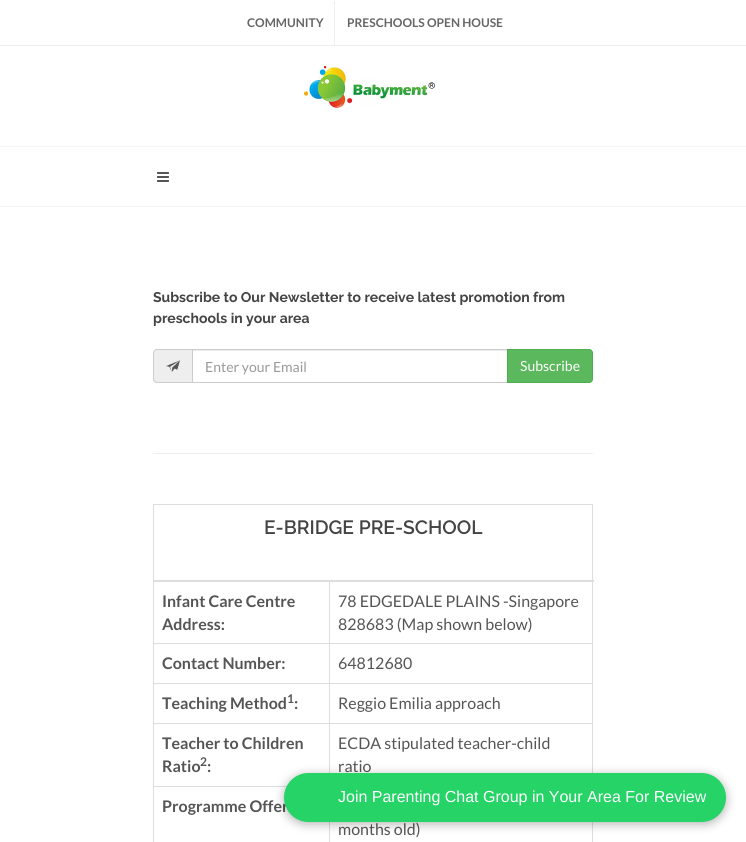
#include <cairo.h>
#include <math.h>
#include <stddef.h>


static void rgb(cairo_t *cr, int r, int g, int b)
{
	cairo_set_source_rgb(cr, r / 255.0, g / 255.0, b / 255.0);
}

static void face(cairo_t *cr, const char *family, double size, int italic, int bold)
{
	cairo_select_font_face(cr, family, italic ? CAIRO_FONT_SLANT_ITALIC : CAIRO_FONT_SLANT_NORMAL,
		bold ? CAIRO_FONT_WEIGHT_BOLD : CAIRO_FONT_WEIGHT_NORMAL);
	cairo_set_font_size(cr, size);
}

static void label(cairo_t *cr, double x, double y, const char *s)
{
	cairo_move_to(cr, x, y);
	cairo_show_text(cr, s);
}

static void rect(cairo_t *cr, double x, double y, double w, double h)
{
	cairo_rectangle(cr, x, y, w, h);
	cairo_fill(cr);
}

static void rrect(cairo_t *cr, double x, double y, double w, double h, double r)
{
	cairo_new_sub_path(cr);
	cairo_arc(cr, x + w - r, y + h - r, r, 0, M_PI / 2);
	cairo_arc(cr, x + r, y + h - r, r, M_PI / 2, M_PI);
	cairo_arc(cr, x + r, y + r, r, M_PI, 1.5 * M_PI);
	cairo_arc(cr, x + w - r, y + r, r, 1.5 * M_PI, 2 * M_PI);
	cairo_close_path(cr);
}

static void soft_shadow(cairo_t *cr, double x, double y, double w, double h, double r, double blur, double alpha)
{
	cairo_push_group_with_content(cr, CAIRO_CONTENT_ALPHA);
	cairo_set_operator(cr, CAIRO_OPERATOR_SOURCE);
	for (int i = 15; i >= -15 && fmin(w, h) + blur * i / 3 > 0; i -= 2) {
		double e = blur * i / 6;
		cairo_set_source_rgba(cr, 0, 0, 0, alpha * erfc((i - 1) / 8.5) / 2);
		rrect(cr, x - e, y - e, w + 2 * e, h + 2 * e, fmax(0, fmin(r + e + blur * .6, fmin(w, h) / 2 + e)));
		cairo_fill(cr);
	}
	cairo_pattern_t *soft = cairo_pop_group(cr);
	cairo_mask(cr, soft);
	cairo_pattern_destroy(soft);
}

static void image(cairo_t *cr, const char *path, double x, double y, double w, double h)
{
	cairo_surface_t *image = cairo_image_surface_create_from_png(path);
	cairo_save(cr);
	cairo_set_source_surface(cr, image, x, y);
	cairo_rectangle(cr, x, y, w, h);
	cairo_fill(cr);
	cairo_restore(cr);
	cairo_surface_destroy(image);
}

static void draw(cairo_t *cr) {
	rgb(cr, 255, 255, 255);
	cairo_paint(cr);
	rgb(cr, 238, 238, 238);
	rect(cr, 0, 45, 746, 1);
	face(cr, "Lato", 12, 0, 1);
	rgb(cr, 102, 102, 102);
	label(cr, 247, 27, "COMMUNITY");
	rgb(cr, 238, 238, 238);
	rect(cr, 334, 1, 1, 44);
	rgb(cr, 102, 102, 102);
	label(cr, 347, 27, "PRESCHOOLS OPEN HOUSE");
	rgb(cr, 245, 245, 245);
	rect(cr, 0, 206, 746, 1);
	image(cr, "image0.png", 304, 66, 132, 42);
	rect(cr, 0, 146, 746, 1);
	image(cr, "image1.png", 157, 172, 12, 10);
	rgb(cr, 238, 238, 238);
	rect(cr, 153, 453, 440, 1);
	face(cr, "Raleway", 14, 0, 1);
	rgb(cr, 68, 68, 68);
	label(cr, 153, 302, "Subscribe to Our Newsletter to receive latest promotion from");
	label(cr, 153, 323, "preschools in your area");
	rgb(cr, 238, 238, 238);
	cairo_new_path(cr);
	cairo_move_to(cr, 157, 349);
	cairo_line_to(cr, 192, 349);
	cairo_line_to(cr, 192, 383);
	cairo_line_to(cr, 157, 383);
	cairo_curve_to(cr, 155, 383, 153, 381, 153, 379);
	cairo_line_to(cr, 153, 353);
	cairo_curve_to(cr, 153, 351, 155, 349, 157, 349);
	cairo_close_path(cr);
	cairo_fill(cr);
	rgb(cr, 204, 204, 204);
	cairo_set_fill_rule(cr, CAIRO_FILL_RULE_EVEN_ODD);
	cairo_new_path(cr);
	cairo_move_to(cr, 157, 349);
	cairo_line_to(cr, 192, 349);
	cairo_line_to(cr, 192, 383);
	cairo_line_to(cr, 157, 383);
	cairo_curve_to(cr, 155, 383, 153, 381, 153, 379);
	cairo_line_to(cr, 153, 353);
	cairo_curve_to(cr, 153, 351, 155, 349, 157, 349);
	cairo_close_path(cr);
	cairo_move_to(cr, 157, 350);
	cairo_line_to(cr, 192, 350);
	cairo_line_to(cr, 192, 382);
	cairo_line_to(cr, 157, 382);
	cairo_curve_to(cr, 155.5, 382, 154, 380.5, 154, 379);
	cairo_line_to(cr, 154, 353);
	cairo_curve_to(cr, 154, 351.5, 155.5, 350, 157, 350);
	cairo_close_path(cr);
	cairo_fill(cr);
	image(cr, "image2.png", 166, 360, 14, 12);
	rgb(cr, 236, 236, 236);
	rect(cr, 193, 350, 314, 1);
	cairo_rectangle(cr, 192.5, 349.5, 315, 33);
	rgb(cr, 204, 204, 204);
	cairo_set_line_width(cr, 1);
	cairo_stroke(cr);
	face(cr, "Lato", 14, 0, 0);
	rgb(cr, 153, 153, 153);
	label(cr, 205, 372, "Enter your Email");
	rgb(cr, 92, 184, 92);
	cairo_new_path(cr);
	cairo_move_to(cr, 507.5, 349.5);
	cairo_line_to(cr, 589, 349.5);
	cairo_curve_to(cr, 591, 349.5, 592.5, 351, 592.5, 353);
	cairo_line_to(cr, 592.5, 379);
	cairo_curve_to(cr, 592.5, 381, 591, 382.5, 589, 382.5);
	cairo_line_to(cr, 507.5, 382.5);
	cairo_close_path(cr);
	cairo_fill_preserve(cr);
	rgb(cr, 76, 174, 76);
	cairo_stroke(cr);
	rgb(cr, 255, 255, 255);
	label(cr, 520, 371, "Subscribe");
	rgb(cr, 221, 221, 221);
	rect(cr, 153, 504, 440, 1);
	rect(cr, 592, 504, 1, 338);
	rect(cr, 153, 504, 1, 338);
	rect(cr, 329, 643, 264, 1);
	rect(cr, 329, 683, 264, 1);
	rect(cr, 329, 723, 264, 1);
	rect(cr, 329, 723, 1, 50);
	rect(cr, 153, 723, 177, 1);
	rect(cr, 329, 683, 1, 41);
	rect(cr, 153, 683, 177, 1);
	rect(cr, 329, 643, 1, 41);
	rect(cr, 153, 643, 177, 1);
	rect(cr, 329, 580, 1, 64);
	rect(cr, 153, 580, 441, 2);
	face(cr, "Raleway SemiBold", 19.25, 0, 0);
	rgb(cr, 68, 68, 68);
	label(cr, 264, 534, "E-BRIDGE PRE-SCHOOL");
	face(cr, "Lato", 16, 0, 1);
	rgb(cr, 85, 85, 85);
	label(cr, 162, 607, "Infant Care Centre");
	label(cr, 162, 630, "Address:");
	face(cr, "Lato", 16, 0, 0);
	label(cr, 338, 607, "78 EDGEDALE PLAINS -Singapore");
	label(cr, 338, 630, "828683 (Map shown below)");
	face(cr, "Lato", 16, 0, 1);
	label(cr, 162, 669, "Contact Number:");
	face(cr, "Lato", 16, 0, 0);
	label(cr, 338, 669, "64812680");
	face(cr, "Lato", 16, 0, 1);
	label(cr, 162, 709, "Teaching Method");
	face(cr, "Lato", 12, 0, 1);
	label(cr, 287, 703, "1");
	face(cr, "Lato", 16, 0, 1);
	label(cr, 294, 709, ":");
	face(cr, "Lato", 16, 0, 0);
	label(cr, 338, 709, "Reggio Emilia approach");
	face(cr, "Lato", 16, 0, 1);
	label(cr, 162, 749, "Teacher to Children");
	label(cr, 162, 772, "Ratio");
	face(cr, "Lato", 12, 0, 1);
	label(cr, 200, 766, "2");
	face(cr, "Lato", 16, 0, 1);
	label(cr, 207, 772, ":");
	face(cr, "Lato", 16, 0, 0);
	label(cr, 338, 749, "ECDA stipulated teacher-child");
	label(cr, 338, 772, "ratio");
	rgb(cr, 221, 221, 221);
	rect(cr, 153, 786, 134, 1);
	face(cr, "Lato", 16, 0, 1);
	rgb(cr, 85, 85, 85);
	label(cr, 162, 812, "Programme Offer");
	rgb(cr, 221, 221, 221);
	rect(cr, 329, 822, 1, 20);
	face(cr, "Lato", 16, 0, 0);
	rgb(cr, 85, 85, 85);
	label(cr, 338, 835, "months old)");
	rgb(cr, 0, 0, 0);
	soft_shadow(cr, 284, 775, 442, 49, 24.5, 5, 0.3);
	rgb(cr, 37, 211, 102);
	rrect(cr, 284, 773, 442, 49, 24.5);
	cairo_fill(cr);
	face(cr, "Liberation Sans", 16, 0, 0);
	rgb(cr, 255, 255, 255);
	label(cr, 338, 802, "Join Parenting Chat Group in Your Area For Review");
}

int main(void) {
	cairo_surface_t *surface = cairo_image_surface_create(CAIRO_FORMAT_RGB24, 746, 842);
	cairo_t *cr = cairo_create(surface);
	cairo_font_options_t *options = cairo_font_options_create();
	cairo_font_options_set_hint_metrics(options, CAIRO_HINT_METRICS_OFF);
	cairo_font_options_set_hint_style(options, CAIRO_HINT_STYLE_NONE);
	cairo_set_font_options(cr, options);
	cairo_set_miter_limit(cr, 4);
	draw(cr);
	cairo_surface_write_to_png(surface, "render.png");
	cairo_font_options_destroy(options);
	cairo_destroy(cr);
	cairo_surface_destroy(surface);
	return 0;
}
